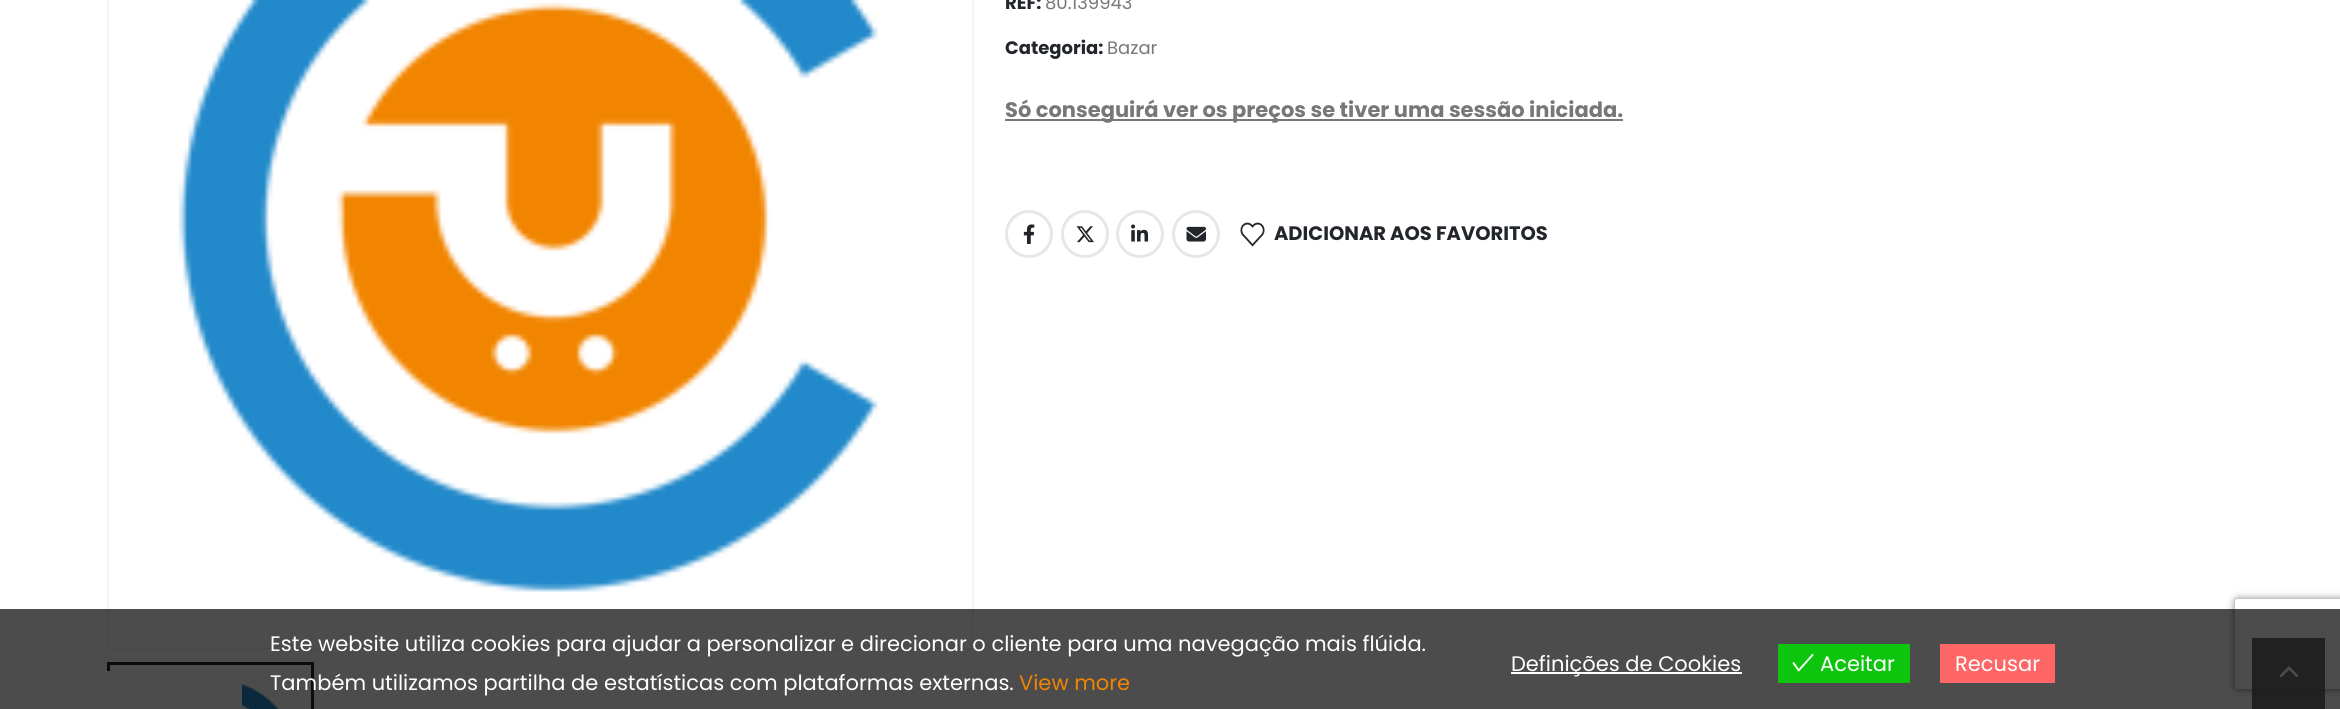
#include <cairo.h>
#include <math.h>
#include <stddef.h>


static void rgb(cairo_t *cr, int r, int g, int b)
{
	cairo_set_source_rgb(cr, r / 255.0, g / 255.0, b / 255.0);
}

static void face(cairo_t *cr, const char *family, double size, int italic, int bold)
{
	cairo_select_font_face(cr, family, italic ? CAIRO_FONT_SLANT_ITALIC : CAIRO_FONT_SLANT_NORMAL,
		bold ? CAIRO_FONT_WEIGHT_BOLD : CAIRO_FONT_WEIGHT_NORMAL);
	cairo_set_font_size(cr, size);
}

static void label(cairo_t *cr, double x, double y, const char *s)
{
	cairo_move_to(cr, x, y);
	cairo_show_text(cr, s);
}

static void rect(cairo_t *cr, double x, double y, double w, double h)
{
	cairo_rectangle(cr, x, y, w, h);
	cairo_fill(cr);
}

static void rrect(cairo_t *cr, double x, double y, double w, double h, double r)
{
	cairo_new_sub_path(cr);
	cairo_arc(cr, x + w - r, y + h - r, r, 0, M_PI / 2);
	cairo_arc(cr, x + r, y + h - r, r, M_PI / 2, M_PI);
	cairo_arc(cr, x + r, y + r, r, M_PI, 1.5 * M_PI);
	cairo_arc(cr, x + w - r, y + r, r, 1.5 * M_PI, 2 * M_PI);
	cairo_close_path(cr);
}

static void soft_shadow(cairo_t *cr, double x, double y, double w, double h, double r, double blur, double alpha)
{
	cairo_push_group_with_content(cr, CAIRO_CONTENT_ALPHA);
	cairo_set_operator(cr, CAIRO_OPERATOR_SOURCE);
	for (int i = 15; i >= -15 && fmin(w, h) + blur * i / 3 > 0; i -= 2) {
		double e = blur * i / 6;
		cairo_set_source_rgba(cr, 0, 0, 0, alpha * erfc((i - 1) / 8.5) / 2);
		rrect(cr, x - e, y - e, w + 2 * e, h + 2 * e, fmax(0, fmin(r + e + blur * .6, fmin(w, h) / 2 + e)));
		cairo_fill(cr);
	}
	cairo_pattern_t *soft = cairo_pop_group(cr);
	cairo_mask(cr, soft);
	cairo_pattern_destroy(soft);
}

static void image(cairo_t *cr, const char *path, double x, double y, double w, double h)
{
	cairo_surface_t *image = cairo_image_surface_create_from_png(path);
	cairo_save(cr);
	cairo_set_source_surface(cr, image, x, y);
	cairo_rectangle(cr, x, y, w, h);
	cairo_fill(cr);
	cairo_restore(cr);
	cairo_surface_destroy(image);
}

static void draw(cairo_t *cr) {
	rgb(cr, 255, 255, 255);
	cairo_paint(cr);
	cairo_rectangle(cr, 108, -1, 865, 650);
	rgb(cr, 244, 244, 244);
	cairo_stroke(cr);
	image(cr, "image0.png", 178, 0, 700, 592);
	cairo_rectangle(cr, 108.5, 663.5, 204, 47);
	rgb(cr, 34, 37, 41);
	cairo_set_line_width(cr, 3);
	cairo_stroke(cr);
	image(cr, "image1.png", 242, 683, 38, 26);
	face(cr, "Poppins", 18, 0, 1);
	label(cr, 1005, 9, "REF:");
	face(cr, "Poppins", 18, 0, 0);
	rgb(cr, 119, 119, 119);
	label(cr, 1045, 9, "80.139943");
	face(cr, "Poppins", 18, 0, 1);
	rgb(cr, 34, 37, 41);
	label(cr, 1005, 54, "Categoria:");
	face(cr, "Poppins", 18, 0, 0);
	rgb(cr, 119, 119, 119);
	label(cr, 1107, 54, "Bazar");
	rect(cr, 1005, 119, 618, 2);
	face(cr, "Poppins", 21, 0, 1);
	label(cr, 1005, 117, "Só conseguirá ver os preços se tiver uma sessão iniciada.");
	cairo_new_path(cr);
	cairo_arc(cr, 1029, 234, 22.5, 0, 2 * M_PI);
	rgb(cr, 231, 231, 231);
	cairo_stroke(cr);
	image(cr, "image2.png", 1023, 224, 12, 20);
	cairo_arc(cr, 1085, 234, 22.5, 0, 2 * M_PI);
	cairo_stroke(cr);
	image(cr, "image3.png", 1076, 226, 18, 17);
	cairo_arc(cr, 1140, 234, 22.5, 0, 2 * M_PI);
	cairo_stroke(cr);
	image(cr, "image4.png", 1131, 224, 18, 18);
	cairo_arc(cr, 1196, 234, 22.5, 0, 2 * M_PI);
	cairo_stroke(cr);
	image(cr, "image5.png", 1186, 226, 20, 16);
	image(cr, "image6.png", 1240, 222, 25, 25);
	face(cr, "Poppins", 19.5, 0, 1);
	rgb(cr, 34, 37, 41);
	label(cr, 1274, 240, "ADICIONAR AOS FAVORITOS");
	cairo_save(cr);
	cairo_set_fill_rule(cr, CAIRO_FILL_RULE_EVEN_ODD);
	cairo_new_path(cr);
	cairo_move_to(cr, 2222, 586);
	cairo_line_to(cr, 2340, 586);
	cairo_line_to(cr, 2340, 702);
	cairo_line_to(cr, 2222, 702);
	cairo_close_path(cr);
	cairo_move_to(cr, 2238, 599);
	cairo_line_to(cr, 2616, 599);
	cairo_curve_to(cr, 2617.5, 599, 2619, 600.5, 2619, 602);
	cairo_line_to(cr, 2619, 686);
	cairo_curve_to(cr, 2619, 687.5, 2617.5, 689, 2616, 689);
	cairo_line_to(cr, 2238, 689);
	cairo_curve_to(cr, 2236.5, 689, 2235, 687.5, 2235, 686);
	cairo_line_to(cr, 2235, 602);
	cairo_curve_to(cr, 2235, 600.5, 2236.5, 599, 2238, 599);
	cairo_close_path(cr);
	cairo_clip(cr);
	rgb(cr, 128, 128, 128);
	soft_shadow(cr, 2235, 599, 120, 90, 3, 4, 1);
	cairo_restore(cr);
	rgb(cr, 255, 255, 255);
	rect(cr, 107, 671, 3, 38);
	cairo_set_source_rgba(cr, 0.251, 0.251, 0.251, 0.75);
	rect(cr, 2252, 638, 73, 71);
	image(cr, "image8.png", 2279, 666, 20, 11);
	cairo_set_source_rgba(cr, 0, 0, 0, 0.7);
	rect(cr, 0, 609, 2340, 100);
	face(cr, "Poppins", 21, 0, 0);
	rgb(cr, 255, 255, 255);
	label(cr, 270, 651, "Este website utiliza cookies para ajudar a personalizar e direcionar o cliente para uma navegação mais flúida.");
	label(cr, 270, 690, "Também utilizamos partilha de estatísticas com plataformas externas.");
	rgb(cr, 241, 133, 0);
	label(cr, 1019, 690, "View more");
	rgb(cr, 255, 255, 255);
	rect(cr, 1511, 672, 231, 2);
	label(cr, 1511, 671, "Definições de Cookies");
	rgb(cr, 14, 197, 14);
	rect(cr, 1778, 644, 132, 39);
	image(cr, "image7.png", 1792, 653, 22, 19);
	rgb(cr, 255, 255, 255);
	label(cr, 1820, 671, "Aceitar");
	rgb(cr, 255, 102, 102);
	rect(cr, 1940, 644, 115, 39);
	rgb(cr, 255, 255, 255);
	label(cr, 1955, 671, "Recusar");
}

int main(void) {
	cairo_surface_t *surface = cairo_image_surface_create(CAIRO_FORMAT_RGB24, 2340, 709);
	cairo_t *cr = cairo_create(surface);
	cairo_font_options_t *options = cairo_font_options_create();
	cairo_font_options_set_hint_metrics(options, CAIRO_HINT_METRICS_OFF);
	cairo_font_options_set_hint_style(options, CAIRO_HINT_STYLE_NONE);
	cairo_set_font_options(cr, options);
	cairo_set_miter_limit(cr, 4);
	draw(cr);
	cairo_surface_write_to_png(surface, "render.png");
	cairo_font_options_destroy(options);
	cairo_destroy(cr);
	cairo_surface_destroy(surface);
	return 0;
}
